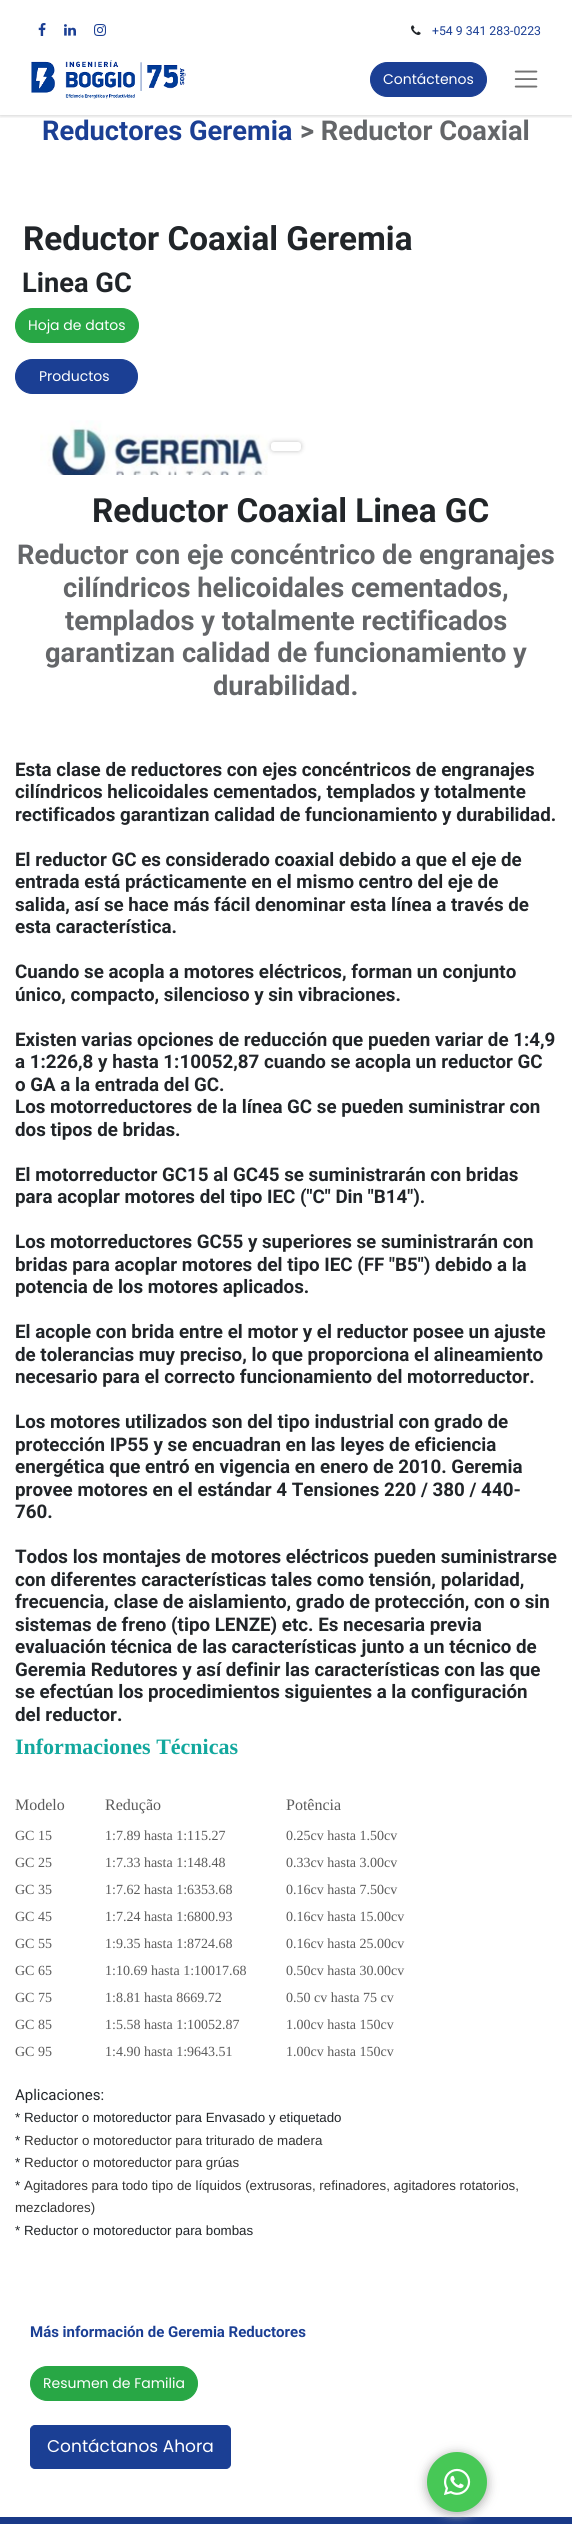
#include <cairo.h>
#include <math.h>
#include <stddef.h>


static void rgb(cairo_t *cr, int r, int g, int b)
{
	cairo_set_source_rgb(cr, r / 255.0, g / 255.0, b / 255.0);
}

static void face(cairo_t *cr, const char *family, double size, int italic, int bold)
{
	cairo_select_font_face(cr, family, italic ? CAIRO_FONT_SLANT_ITALIC : CAIRO_FONT_SLANT_NORMAL,
		bold ? CAIRO_FONT_WEIGHT_BOLD : CAIRO_FONT_WEIGHT_NORMAL);
	cairo_set_font_size(cr, size);
}

static void label(cairo_t *cr, double x, double y, const char *s)
{
	cairo_move_to(cr, x, y);
	cairo_show_text(cr, s);
}

static void rect(cairo_t *cr, double x, double y, double w, double h)
{
	cairo_rectangle(cr, x, y, w, h);
	cairo_fill(cr);
}

static void rrect(cairo_t *cr, double x, double y, double w, double h, double r)
{
	cairo_new_sub_path(cr);
	cairo_arc(cr, x + w - r, y + h - r, r, 0, M_PI / 2);
	cairo_arc(cr, x + r, y + h - r, r, M_PI / 2, M_PI);
	cairo_arc(cr, x + r, y + r, r, M_PI, 1.5 * M_PI);
	cairo_arc(cr, x + w - r, y + r, r, 1.5 * M_PI, 2 * M_PI);
	cairo_close_path(cr);
}

static void soft_shadow(cairo_t *cr, double x, double y, double w, double h, double r, double blur, double alpha)
{
	cairo_push_group_with_content(cr, CAIRO_CONTENT_ALPHA);
	cairo_set_operator(cr, CAIRO_OPERATOR_SOURCE);
	for (int i = 15; i >= -15 && fmin(w, h) + blur * i / 3 > 0; i -= 2) {
		double e = blur * i / 6;
		cairo_set_source_rgba(cr, 0, 0, 0, alpha * erfc((i - 1) / 8.5) / 2);
		rrect(cr, x - e, y - e, w + 2 * e, h + 2 * e, fmax(0, fmin(r + e + blur * .6, fmin(w, h) / 2 + e)));
		cairo_fill(cr);
	}
	cairo_pattern_t *soft = cairo_pop_group(cr);
	cairo_mask(cr, soft);
	cairo_pattern_destroy(soft);
}

static void image(cairo_t *cr, const char *path, double x, double y, double w, double h)
{
	cairo_surface_t *image = cairo_image_surface_create_from_png(path);
	cairo_save(cr);
	cairo_set_source_surface(cr, image, x, y);
	cairo_rectangle(cr, x, y, w, h);
	cairo_fill(cr);
	cairo_restore(cr);
	cairo_surface_destroy(image);
}

static void draw(cairo_t *cr) {
	rgb(cr, 255, 255, 255);
	cairo_paint(cr);
	cairo_save(cr);
	cairo_rectangle(cr, 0, 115, 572, 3);
	cairo_clip(cr);
	rgb(cr, 0, 0, 0);
	soft_shadow(cr, 0, 0, 572, 115, 0, 2.5, 0.25);
	cairo_restore(cr);
	image(cr, "image0.png", 38, 23, 8, 13);
	image(cr, "image1.png", 64, 24, 12, 12);
	image(cr, "image2.png", 94, 24, 12, 12);
	image(cr, "image3.png", 411, 25, 10, 10);
	face(cr, "Roboto", 12.25, 0, 0);
	rgb(cr, 27, 63, 148);
	label(cr, 432, 35, "+54 9 341 283-0223");
	image(cr, "image4.png", 31, 60, 155, 39);
	rrect(cr, 370.5, 62.5, 116, 34, 17);
	cairo_fill_preserve(cr);
	cairo_set_line_width(cr, 1);
	cairo_stroke(cr);
	face(cr, "Poppins", 14, 0, 0);
	rgb(cr, 255, 255, 255);
	label(cr, 383, 84, "Contáctenos");
	image(cr, "image5.png", 514, 70, 24, 18);
	face(cr, "Roboto", 27.25, 0, 1);
	rgb(cr, 27, 63, 148);
	label(cr, 42, 140, "Reductores Geremia");
	rgb(cr, 100, 102, 105);
	label(cr, 300, 140, "> Reductor Coaxial");
	face(cr, "Roboto", 33.25, 0, 1);
	rgb(cr, 33, 37, 41);
	label(cr, 23, 250, "Reductor Coaxial Geremia");
	face(cr, "Roboto", 27.25, 0, 1);
	label(cr, 22, 292, "Linea GC");
	rgb(cr, 40, 167, 69);
	rrect(cr, 15.5, 308.5, 123, 34, 17);
	cairo_fill_preserve(cr);
	cairo_stroke(cr);
	face(cr, "Poppins", 14, 0, 0);
	rgb(cr, 255, 255, 255);
	label(cr, 28, 330, "Hoja de datos");
	rgb(cr, 27, 63, 148);
	rrect(cr, 15.5, 359.5, 122, 34, 17);
	cairo_fill_preserve(cr);
	cairo_stroke(cr);
	rgb(cr, 255, 255, 255);
	label(cr, 39, 381, "Productos");
	image(cr, "image6.png", 40, 420, 228, 55);
	rgb(cr, 0, 0, 0);
	soft_shadow(cr, 271, 442, 30, 9, 3, 2.5, 0.25);
	rgb(cr, 255, 255, 255);
	rrect(cr, 271, 442, 30, 9, 3);
	cairo_fill(cr);
	face(cr, "Roboto", 33.25, 0, 1);
	rgb(cr, 33, 37, 41);
	label(cr, 92, 522, "Reductor Coaxial Linea GC");
	face(cr, "Roboto", 27.25, 0, 1);
	rgb(cr, 100, 102, 105);
	label(cr, 17, 564, "Reductor con eje concéntrico de engranajes");
	label(cr, 63, 597, "cilíndricos helicoidales cementados,");
	label(cr, 65, 630, "templados y totalmente rectificados");
	label(cr, 45, 662, "garantizan calidad de funcionamiento y");
	label(cr, 213, 695, "durabilidad.");
	face(cr, "Roboto", 18.75, 0, 1);
	rgb(cr, 33, 37, 41);
	label(cr, 15, 776, "Esta clase de reductores con ejes concéntricos de engranajes");
	label(cr, 15, 798, "cilíndricos helicoidales cementados, templados y totalmente");
	label(cr, 15, 821, "rectificados garantizan calidad de funcionamiento y durabilidad.");
	label(cr, 15, 866, "El reductor GC es considerado coaxial debido a que el eje de");
	label(cr, 15, 888, "entrada está prácticamente en el mismo centro del eje de");
	label(cr, 15, 911, "salida, así se hace más fácil denominar esta línea a través de");
	label(cr, 15, 933, "esta característica.");
	label(cr, 15, 978, "Cuando se acopla a motores eléctricos, forman un conjunto");
	label(cr, 15, 1001, "único, compacto, silencioso y sin vibraciones.");
	label(cr, 15, 1046, "Existen varias opciones de reducción que pueden variar de 1:4,9");
	label(cr, 15, 1068, "a 1:226,8 y hasta 1:10052,87 cuando se acopla un reductor GC");
	label(cr, 15, 1091, "o GA a la entrada del GC.");
	label(cr, 15, 1113, "Los motorreductores de la línea GC se pueden suministrar con");
	label(cr, 15, 1136, "dos tipos de bridas.");
	label(cr, 15, 1181, "El motorreductor GC15 al GC45 se suministrarán con bridas");
	label(cr, 15, 1203, "para acoplar motores del tipo IEC (\"C\" Din \"B14\").");
	label(cr, 15, 1248, "Los motorreductores GC55 y superiores se suministrarán con");
	label(cr, 15, 1271, "bridas para acoplar motores del tipo IEC (FF \"B5\") debido a la");
	label(cr, 15, 1293, "potencia de los motores aplicados.");
	label(cr, 15, 1338, "El acople con brida entre el motor y el reductor posee un ajuste");
	label(cr, 15, 1361, "de tolerancias muy preciso, lo que proporciona el alineamiento");
	label(cr, 15, 1383, "necesario para el correcto funcionamiento del motorreductor.");
	label(cr, 15, 1428, "Los motores utilizados son del tipo industrial con grado de");
	label(cr, 15, 1451, "protección IP55 y se encuadran en las leyes de eficiencia");
	label(cr, 15, 1473, "energética que entró en vigencia en enero de 2010. Geremia");
	label(cr, 15, 1496, "provee motores en el estándar 4 Tensiones 220 / 380 / 440-");
	label(cr, 15, 1518, "760.");
	label(cr, 15, 1563, "Todos los montajes de motores eléctricos pueden suministrarse");
	label(cr, 15, 1586, "con diferentes características tales como tensión, polaridad,");
	label(cr, 15, 1608, "frecuencia, clase de aislamiento, grado de protección, con o sin");
	label(cr, 15, 1631, "sistemas de freno (tipo LENZE) etc. Es necesaria previa");
	label(cr, 15, 1653, "evaluación técnica de las características junto a un técnico de");
	label(cr, 15, 1676, "Geremia Redutores y así definir las características con las que");
	label(cr, 15, 1698, "se efectúan los procedimientos siguientes a la configuración");
	label(cr, 15, 1721, "del reductor.");
	face(cr, "Liberation Serif", 22, 0, 1);
	rgb(cr, 19, 168, 158);
	label(cr, 15, 1754, "Informaciones Técnicas");
	face(cr, "Liberation Serif", 16, 0, 0);
	rgb(cr, 91, 91, 91);
	label(cr, 15, 1810, "Modelo");
	label(cr, 105, 1810, "Redução");
	label(cr, 286, 1810, "Potência");
	face(cr, "Liberation Serif", 14, 0, 0);
	label(cr, 15, 1840, "GC 15");
	label(cr, 105, 1840, "1:7.89 hasta 1:115.27");
	label(cr, 286, 1840, "0.25cv hasta 1.50cv");
	label(cr, 15, 1867, "GC 25");
	label(cr, 105, 1867, "1:7.33 hasta 1:148.48");
	label(cr, 286, 1867, "0.33cv hasta 3.00cv");
	label(cr, 15, 1894, "GC 35");
	label(cr, 105, 1894, "1:7.62 hasta 1:6353.68");
	label(cr, 286, 1894, "0.16cv hasta 7.50cv");
	label(cr, 15, 1921, "GC 45");
	label(cr, 105, 1921, "1:7.24 hasta 1:6800.93");
	label(cr, 286, 1921, "0.16cv hasta 15.00cv");
	label(cr, 15, 1948, "GC 55");
	label(cr, 105, 1948, "1:9.35 hasta 1:8724.68");
	label(cr, 286, 1948, "0.16cv hasta 25.00cv");
	label(cr, 15, 1975, "GC 65");
	label(cr, 105, 1975, "1:10.69 hasta 1:10017.68");
	label(cr, 286, 1975, "0.50cv hasta 30.00cv");
	label(cr, 15, 2002, "GC 75");
	label(cr, 105, 2002, "1:8.81 hasta 8669.72");
	label(cr, 286, 2002, "0.50 cv hasta 75 cv");
	label(cr, 15, 2029, "GC 85");
	label(cr, 105, 2029, "1:5.58 hasta 1:10052.87");
	label(cr, 286, 2029, "1.00cv hasta 150cv");
	label(cr, 15, 2056, "GC 95");
	label(cr, 105, 2056, "1:4.90 hasta 1:9643.51");
	label(cr, 286, 2056, "1.00cv hasta 150cv");
	face(cr, "Roboto", 15, 0, 0);
	rgb(cr, 33, 37, 41);
	label(cr, 15, 2100, "Aplicaciones:");
	face(cr, "Liberation Sans", 13.35, 0, 0);
	label(cr, 15, 2122, "* Reductor o motoreductor para Envasado y etiquetado");
	label(cr, 15, 2145, "*");
	rgb(cr, 51, 51, 51);
	label(cr, 24, 2145, "Reductor o motoreductor para triturado de madera");
	rgb(cr, 33, 37, 41);
	label(cr, 15, 2167, "*");
	rgb(cr, 51, 51, 51);
	label(cr, 24, 2167, "Reductor o motoreductor para grúas");
	rgb(cr, 33, 37, 41);
	label(cr, 15, 2190, "*");
	rgb(cr, 51, 51, 51);
	label(cr, 24, 2190, "Agitadores para todo tipo de líquidos (extrusoras, refinadores, agitadores rotatorios,");
	label(cr, 15, 2212, "mezcladores)");
	rgb(cr, 33, 37, 41);
	label(cr, 15, 2235, "* Reductor o motoreductor para bombas");
	face(cr, "Roboto", 15, 0, 1);
	rgb(cr, 27, 63, 148);
	label(cr, 30, 2337, "Más información de Geremia Reductores");
	rgb(cr, 40, 167, 69);
	rrect(cr, 30.5, 2366.5, 167, 34, 17);
	cairo_fill_preserve(cr);
	cairo_stroke(cr);
	face(cr, "Poppins", 14, 0, 0);
	rgb(cr, 255, 255, 255);
	label(cr, 43, 2388, "Resumen de Familia");
	rgb(cr, 27, 63, 148);
	rrect(cr, 30.5, 2425.5, 200, 43, 4.5);
	cairo_fill_preserve(cr);
	cairo_stroke(cr);
	face(cr, "Poppins", 17, 0, 0);
	rgb(cr, 255, 255, 255);
	label(cr, 47, 2452, "Contáctanos Ahora");
	rgb(cr, 25, 57, 135);
	rect(cr, 0, 2517, 572, 7);
	rgb(cr, 181, 181, 181);
	soft_shadow(cr, 426, 2453, 62, 62, 31, 5, 1);
	rgb(cr, 71, 200, 86);
	cairo_arc(cr, 457, 2482, 30, 0, 2 * M_PI);
	cairo_fill(cr);
	image(cr, "image7.png", 444, 2468, 27, 27);
}

int main(void) {
	cairo_surface_t *surface = cairo_image_surface_create(CAIRO_FORMAT_RGB24, 572, 2524);
	cairo_t *cr = cairo_create(surface);
	cairo_font_options_t *options = cairo_font_options_create();
	cairo_font_options_set_hint_metrics(options, CAIRO_HINT_METRICS_OFF);
	cairo_font_options_set_hint_style(options, CAIRO_HINT_STYLE_NONE);
	cairo_set_font_options(cr, options);
	cairo_set_miter_limit(cr, 4);
	draw(cr);
	cairo_surface_write_to_png(surface, "render.png");
	cairo_font_options_destroy(options);
	cairo_destroy(cr);
	cairo_surface_destroy(surface);
	return 0;
}
